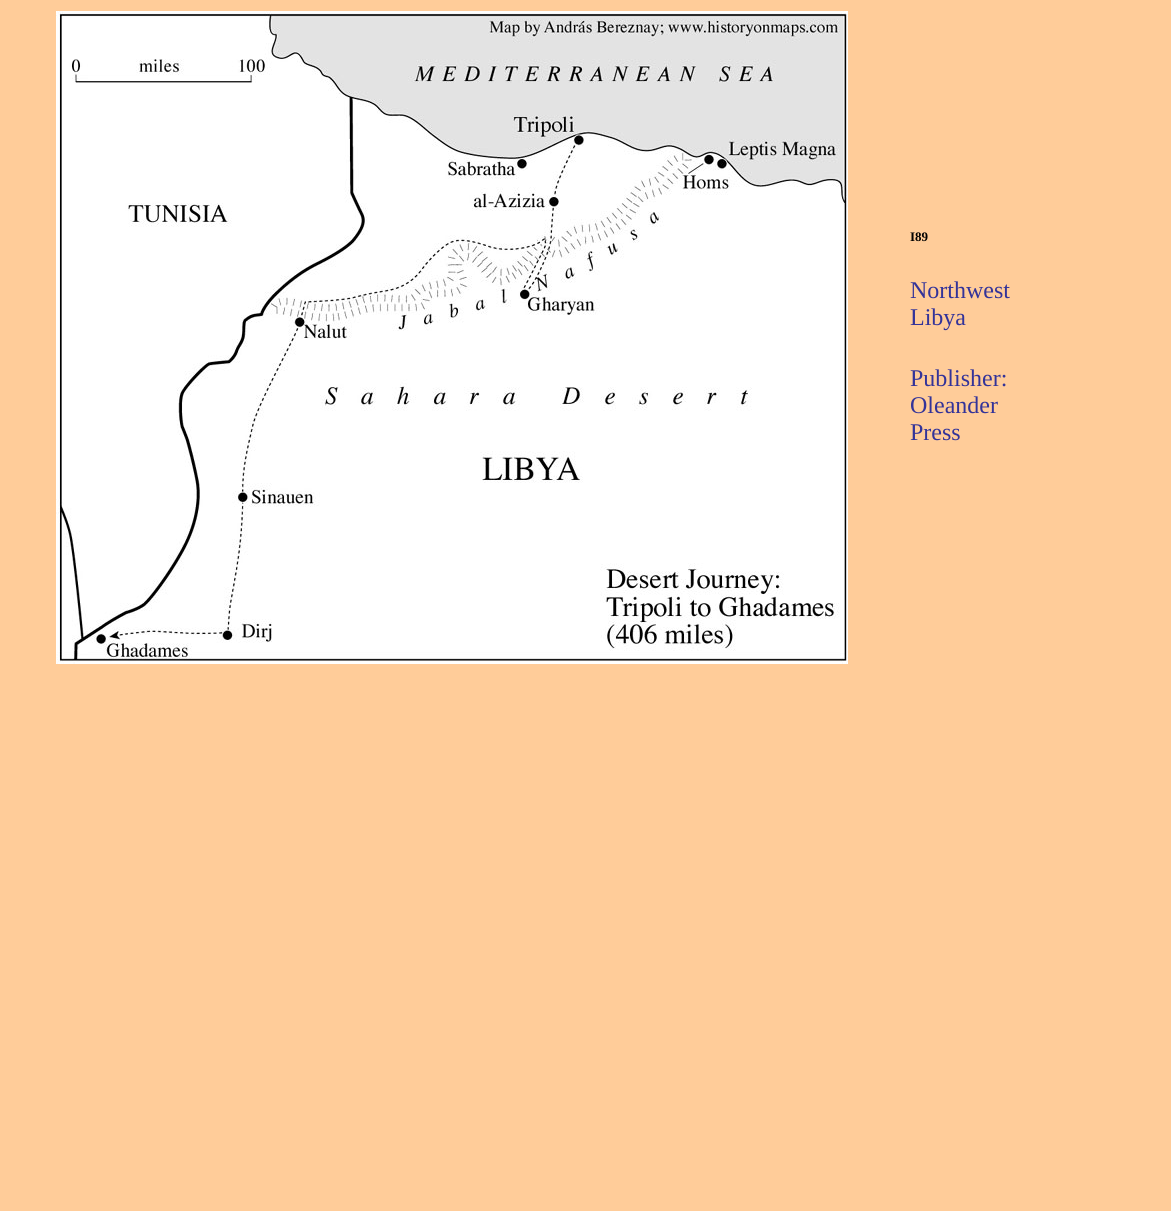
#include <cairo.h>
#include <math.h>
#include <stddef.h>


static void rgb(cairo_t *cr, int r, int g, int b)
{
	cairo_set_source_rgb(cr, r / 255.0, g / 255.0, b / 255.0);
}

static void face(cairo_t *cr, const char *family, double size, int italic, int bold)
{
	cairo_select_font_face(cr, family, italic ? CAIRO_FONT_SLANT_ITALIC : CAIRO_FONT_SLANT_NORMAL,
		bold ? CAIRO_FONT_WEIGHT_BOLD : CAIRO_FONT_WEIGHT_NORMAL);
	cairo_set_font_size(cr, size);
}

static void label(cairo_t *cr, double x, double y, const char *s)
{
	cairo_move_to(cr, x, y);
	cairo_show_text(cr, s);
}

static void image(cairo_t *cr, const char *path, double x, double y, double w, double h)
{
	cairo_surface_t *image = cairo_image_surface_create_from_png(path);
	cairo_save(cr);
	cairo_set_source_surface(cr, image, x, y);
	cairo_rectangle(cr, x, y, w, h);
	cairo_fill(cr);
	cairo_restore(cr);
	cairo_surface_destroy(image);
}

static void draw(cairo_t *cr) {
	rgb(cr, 255, 204, 153);
	cairo_paint(cr);
	image(cr, "image0.png", 56, 11, 792, 653);
	face(cr, "Liberation Serif", 13, 0, 1);
	rgb(cr, 0, 0, 0);
	label(cr, 910, 241, "I89");
	face(cr, "Liberation Serif", 24, 0, 0);
	rgb(cr, 51, 51, 153);
	label(cr, 910, 298, "Northwest");
	label(cr, 910, 325, "Libya");
	label(cr, 910, 386, "Publisher:");
	label(cr, 910, 413, "Oleander");
	label(cr, 910, 440, "Press");
}

int main(void) {
	cairo_surface_t *surface = cairo_image_surface_create(CAIRO_FORMAT_RGB24, 1171, 1211);
	cairo_t *cr = cairo_create(surface);
	cairo_font_options_t *options = cairo_font_options_create();
	cairo_font_options_set_hint_metrics(options, CAIRO_HINT_METRICS_OFF);
	cairo_font_options_set_hint_style(options, CAIRO_HINT_STYLE_NONE);
	cairo_set_font_options(cr, options);
	cairo_set_miter_limit(cr, 4);
	draw(cr);
	cairo_surface_write_to_png(surface, "render.png");
	cairo_font_options_destroy(options);
	cairo_destroy(cr);
	cairo_surface_destroy(surface);
	return 0;
}
